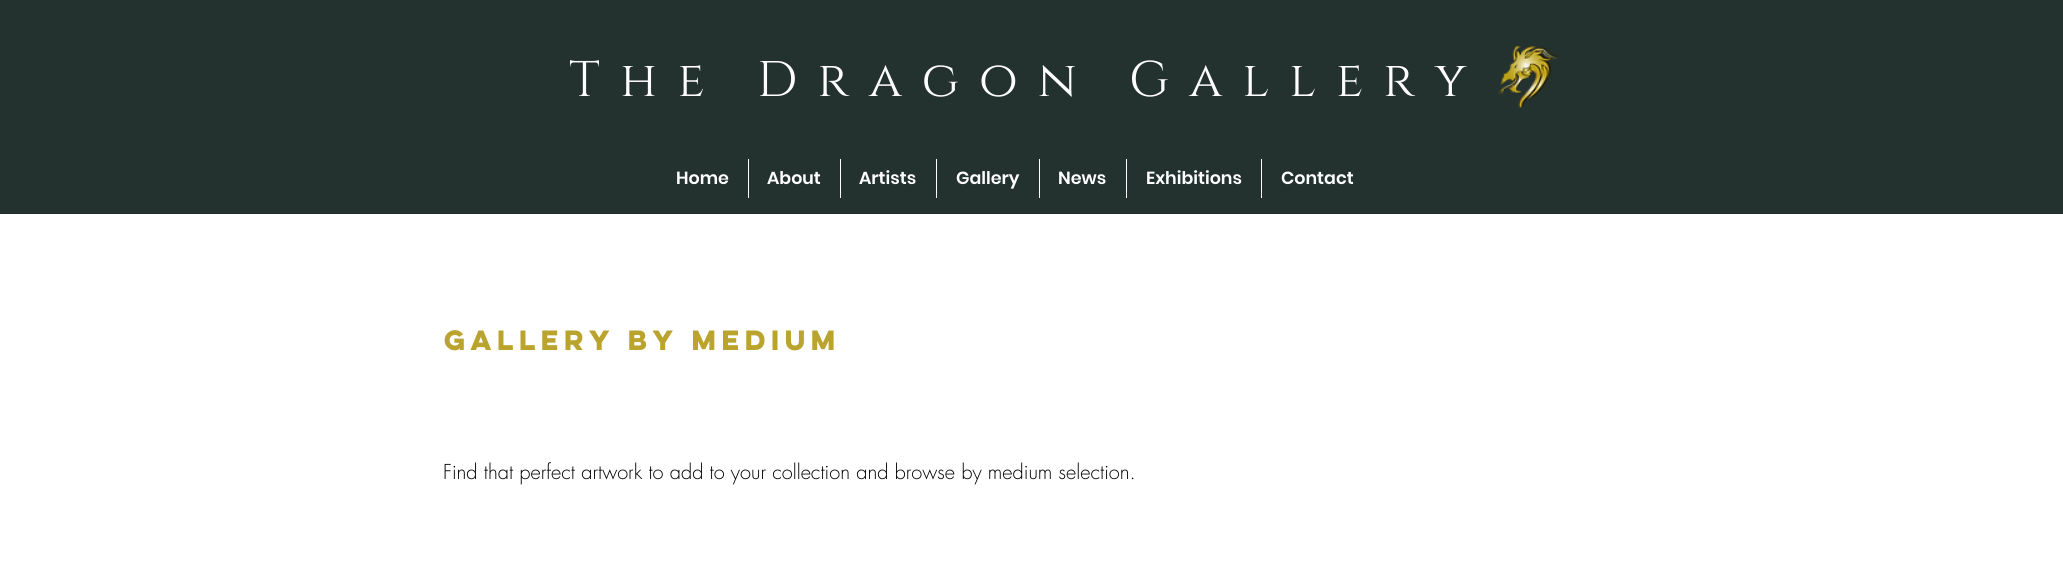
#include <cairo.h>
#include <math.h>
#include <stddef.h>


static void rgb(cairo_t *cr, int r, int g, int b)
{
	cairo_set_source_rgb(cr, r / 255.0, g / 255.0, b / 255.0);
}

static void face(cairo_t *cr, const char *family, double size, int italic, int bold)
{
	cairo_select_font_face(cr, family, italic ? CAIRO_FONT_SLANT_ITALIC : CAIRO_FONT_SLANT_NORMAL,
		bold ? CAIRO_FONT_WEIGHT_BOLD : CAIRO_FONT_WEIGHT_NORMAL);
	cairo_set_font_size(cr, size);
}

static void label(cairo_t *cr, double x, double y, const char *s)
{
	cairo_move_to(cr, x, y);
	cairo_show_text(cr, s);
}

static void tracked(cairo_t *cr, double x, double y, const char *s, double letter, double word)
{
	cairo_move_to(cr, x, y);
	while (*s) {
		char ch[5] = {0};
		int n = 0;
		do ch[n++] = *s++; while ((*s & 0xC0) == 0x80);
		cairo_show_text(cr, ch);
		cairo_rel_move_to(cr, letter + word * (*ch == ' '), 0);
	}
}

static void rect(cairo_t *cr, double x, double y, double w, double h)
{
	cairo_rectangle(cr, x, y, w, h);
	cairo_fill(cr);
}

static void image(cairo_t *cr, const char *path, double x, double y, double w, double h)
{
	cairo_surface_t *image = cairo_image_surface_create_from_png(path);
	cairo_save(cr);
	cairo_set_source_surface(cr, image, x, y);
	cairo_rectangle(cr, x, y, w, h);
	cairo_fill(cr);
	cairo_restore(cr);
	cairo_surface_destroy(image);
}

static void draw(cairo_t *cr) {
	rgb(cr, 255, 255, 255);
	cairo_paint(cr);
	rgb(cr, 36, 50, 47);
	rect(cr, 0, 0, 2063, 214);
	face(cr, "Cinzel", 50, 0, 0);
	rgb(cr, 255, 255, 255);
	tracked(cr, 569, 96, "The Dragon Gallery", 20, 0);
	image(cr, "image0.png", 1498, 46, 61, 62);
	face(cr, "Poppins SemiBold", 17.5, 0, 0);
	label(cr, 676, 184, "Home");
	rect(cr, 748, 159, 1, 39);
	label(cr, 767, 184, "About");
	rect(cr, 840, 159, 1, 39);
	label(cr, 859, 184, "Artists");
	rect(cr, 936, 159, 1, 39);
	label(cr, 956, 184, "Gallery");
	rect(cr, 1039, 159, 1, 39);
	label(cr, 1058, 184, "News");
	rect(cr, 1126, 159, 1, 39);
	label(cr, 1146, 184, "Exhibitions");
	rect(cr, 1261, 159, 1, 39);
	label(cr, 1281, 184, "Contact");
	face(cr, "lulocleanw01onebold", 25, 0, 1);
	rgb(cr, 186, 164, 45);
	label(cr, 444, 350, "gallery by medium");
	face(cr, "futura Light", 20, 0, 0);
	rgb(cr, 0, 0, 0);
	label(cr, 443, 479, "Find that perfect artwork to add to your collection and browse by medium selection.");
}

int main(void) {
	cairo_surface_t *surface = cairo_image_surface_create(CAIRO_FORMAT_RGB24, 2063, 561);
	cairo_t *cr = cairo_create(surface);
	cairo_font_options_t *options = cairo_font_options_create();
	cairo_font_options_set_hint_metrics(options, CAIRO_HINT_METRICS_OFF);
	cairo_font_options_set_hint_style(options, CAIRO_HINT_STYLE_NONE);
	cairo_set_font_options(cr, options);
	cairo_set_miter_limit(cr, 4);
	draw(cr);
	cairo_surface_write_to_png(surface, "render.png");
	cairo_font_options_destroy(options);
	cairo_destroy(cr);
	cairo_surface_destroy(surface);
	return 0;
}
